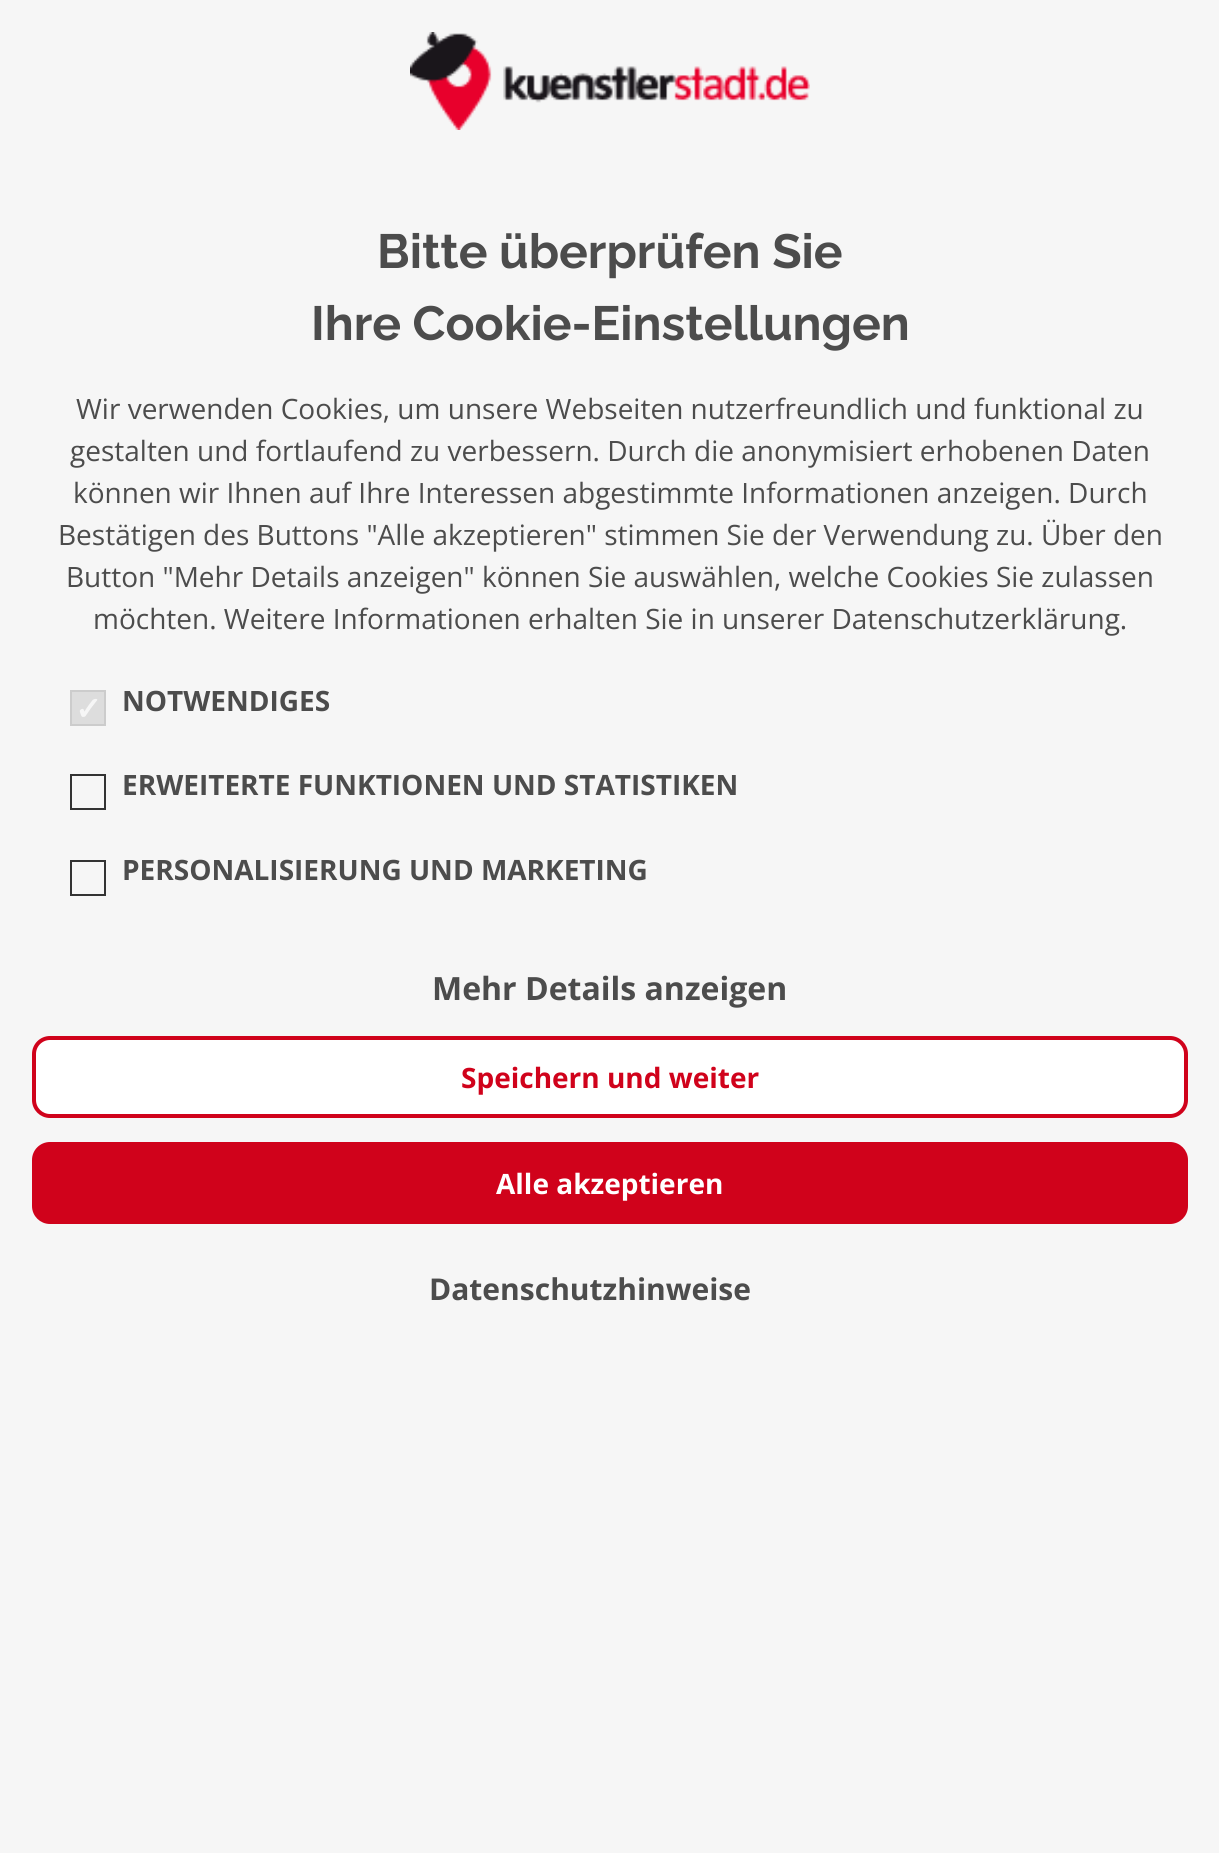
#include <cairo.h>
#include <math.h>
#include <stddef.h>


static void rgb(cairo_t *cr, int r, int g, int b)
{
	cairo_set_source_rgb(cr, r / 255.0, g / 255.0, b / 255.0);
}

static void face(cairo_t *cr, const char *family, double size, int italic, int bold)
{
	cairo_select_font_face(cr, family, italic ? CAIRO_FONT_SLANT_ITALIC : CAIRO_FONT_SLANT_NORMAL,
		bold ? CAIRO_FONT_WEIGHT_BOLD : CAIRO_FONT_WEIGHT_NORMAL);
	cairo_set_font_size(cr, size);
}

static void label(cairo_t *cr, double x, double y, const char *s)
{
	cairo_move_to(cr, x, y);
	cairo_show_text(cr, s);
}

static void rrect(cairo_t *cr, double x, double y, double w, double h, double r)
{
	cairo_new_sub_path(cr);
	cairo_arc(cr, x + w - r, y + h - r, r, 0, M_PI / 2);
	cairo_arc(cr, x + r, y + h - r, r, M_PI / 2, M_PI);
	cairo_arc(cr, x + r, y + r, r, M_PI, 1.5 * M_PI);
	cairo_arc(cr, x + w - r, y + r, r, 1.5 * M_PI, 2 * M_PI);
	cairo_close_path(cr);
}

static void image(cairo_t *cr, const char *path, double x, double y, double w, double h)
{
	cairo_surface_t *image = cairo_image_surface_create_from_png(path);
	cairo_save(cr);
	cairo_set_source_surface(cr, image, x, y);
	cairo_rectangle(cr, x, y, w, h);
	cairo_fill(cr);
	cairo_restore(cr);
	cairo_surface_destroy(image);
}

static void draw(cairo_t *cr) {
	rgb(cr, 246, 246, 246);
	cairo_paint(cr);
	image(cr, "image0.png", 410, 32, 400, 98);
	face(cr, "Raleway", 48, 0, 1);
	rgb(cr, 76, 76, 76);
	label(cr, 377, 268, "Bitte überprüfen Sie");
	label(cr, 311, 340, "Ihre Cookie-Einstellungen");
	face(cr, "Open Sans", 28, 0, 0);
	label(cr, 76, 419, "Wir verwenden Cookies, um unsere Webseiten nutzerfreundlich und funktional zu");
	label(cr, 70, 461, "gestalten und fortlaufend zu verbessern. Durch die anonymisiert erhobenen Daten");
	label(cr, 73, 503, "können wir Ihnen auf Ihre Interessen abgestimmte Informationen anzeigen. Durch");
	label(cr, 58, 545, "Bestätigen des Buttons \"Alle akzeptieren\" stimmen Sie der Verwendung zu. Über den");
	label(cr, 66, 587, "Button \"Mehr Details anzeigen\" können Sie auswählen, welche Cookies Sie zulassen");
	label(cr, 93, 629, "möchten. Weitere Informationen erhalten Sie in unserer Datenschutzerklärung.");
	rgb(cr, 221, 221, 221);
	cairo_rectangle(cr, 71, 691, 34, 34);
	cairo_fill_preserve(cr);
	rgb(cr, 204, 204, 204);
	cairo_stroke(cr);
	face(cr, "DejaVu Sans", 32, 0, 1);
	rgb(cr, 246, 246, 246);
	label(cr, 75, 720, "✓");
	face(cr, "Open Sans", 28, 0, 1);
	rgb(cr, 76, 76, 76);
	label(cr, 122, 711, "NOTWENDIGES");
	cairo_rectangle(cr, 71, 775, 34, 34);
	rgb(cr, 51, 51, 51);
	cairo_stroke(cr);
	rgb(cr, 76, 76, 76);
	label(cr, 122, 795, "ERWEITERTE FUNKTIONEN UND STATISTIKEN");
	cairo_rectangle(cr, 71, 861, 34, 34);
	rgb(cr, 51, 51, 51);
	cairo_stroke(cr);
	rgb(cr, 76, 76, 76);
	label(cr, 122, 880, "PERSONALISIERUNG UND MARKETING");
	face(cr, "Open Sans", 32, 0, 1);
	label(cr, 432, 1000, "Mehr Details anzeigen");
	rgb(cr, 255, 255, 255);
	rrect(cr, 34, 1038, 1152, 78, 16);
	cairo_fill_preserve(cr);
	rgb(cr, 208, 2, 27);
	cairo_set_line_width(cr, 4);
	cairo_stroke(cr);
	face(cr, "Open Sans", 28, 0, 1);
	label(cr, 461, 1088, "Speichern und weiter");
	rrect(cr, 34, 1144, 1152, 78, 16);
	cairo_fill_preserve(cr);
	cairo_stroke(cr);
	rgb(cr, 255, 255, 255);
	label(cr, 496, 1194, "Alle akzeptieren");
	face(cr, "Open Sans", 30, 0, 1);
	rgb(cr, 76, 76, 76);
	label(cr, 429, 1300, "Datenschutzhinweise");
}

int main(void) {
	cairo_surface_t *surface = cairo_image_surface_create(CAIRO_FORMAT_RGB24, 1219, 1853);
	cairo_t *cr = cairo_create(surface);
	cairo_font_options_t *options = cairo_font_options_create();
	cairo_font_options_set_hint_metrics(options, CAIRO_HINT_METRICS_OFF);
	cairo_font_options_set_hint_style(options, CAIRO_HINT_STYLE_NONE);
	cairo_set_font_options(cr, options);
	cairo_set_miter_limit(cr, 4);
	draw(cr);
	cairo_surface_write_to_png(surface, "render.png");
	cairo_font_options_destroy(options);
	cairo_destroy(cr);
	cairo_surface_destroy(surface);
	return 0;
}
